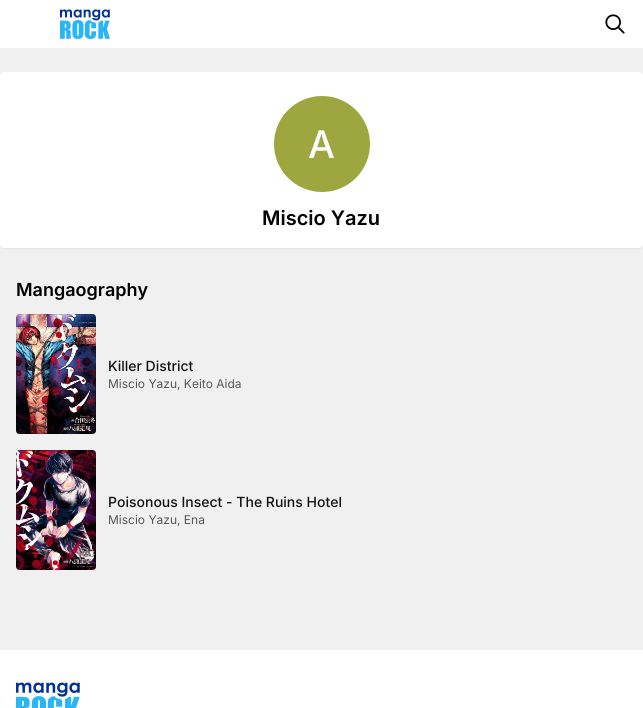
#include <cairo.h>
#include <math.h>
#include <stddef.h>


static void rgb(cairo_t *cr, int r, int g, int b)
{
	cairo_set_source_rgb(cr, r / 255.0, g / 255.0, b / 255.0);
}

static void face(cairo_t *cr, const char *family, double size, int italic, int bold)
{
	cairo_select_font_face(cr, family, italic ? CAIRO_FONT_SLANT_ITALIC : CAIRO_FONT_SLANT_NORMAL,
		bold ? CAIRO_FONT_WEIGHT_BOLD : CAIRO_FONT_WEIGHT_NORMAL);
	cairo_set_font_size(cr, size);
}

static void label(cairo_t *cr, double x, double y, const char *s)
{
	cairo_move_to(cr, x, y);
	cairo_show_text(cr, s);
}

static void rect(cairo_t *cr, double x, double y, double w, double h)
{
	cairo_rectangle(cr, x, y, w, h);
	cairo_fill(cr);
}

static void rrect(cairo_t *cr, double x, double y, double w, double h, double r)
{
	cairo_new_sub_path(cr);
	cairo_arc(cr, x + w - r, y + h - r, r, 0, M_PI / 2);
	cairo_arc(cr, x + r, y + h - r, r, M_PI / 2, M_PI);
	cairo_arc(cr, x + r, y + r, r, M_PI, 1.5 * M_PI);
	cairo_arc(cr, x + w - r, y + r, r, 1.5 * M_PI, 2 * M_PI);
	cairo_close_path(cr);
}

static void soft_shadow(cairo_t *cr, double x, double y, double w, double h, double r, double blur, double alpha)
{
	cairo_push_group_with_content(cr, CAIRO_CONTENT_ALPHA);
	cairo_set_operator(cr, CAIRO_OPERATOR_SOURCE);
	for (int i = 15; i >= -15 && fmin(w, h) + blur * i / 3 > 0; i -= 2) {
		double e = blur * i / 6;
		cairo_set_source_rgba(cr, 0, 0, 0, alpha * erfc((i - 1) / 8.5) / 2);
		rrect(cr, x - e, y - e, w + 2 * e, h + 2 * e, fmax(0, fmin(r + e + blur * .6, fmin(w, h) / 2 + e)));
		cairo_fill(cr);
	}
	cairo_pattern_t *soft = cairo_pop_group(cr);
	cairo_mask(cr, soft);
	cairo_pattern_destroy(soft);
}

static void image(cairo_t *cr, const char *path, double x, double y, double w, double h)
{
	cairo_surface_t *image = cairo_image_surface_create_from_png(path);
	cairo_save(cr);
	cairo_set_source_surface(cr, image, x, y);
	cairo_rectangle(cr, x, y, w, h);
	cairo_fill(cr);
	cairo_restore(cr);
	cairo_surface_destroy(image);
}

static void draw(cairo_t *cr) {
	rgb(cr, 255, 255, 255);
	cairo_paint(cr);
	image(cr, "image0.png", 60, 9, 50, 30);
	image(cr, "image1.png", 605, 14, 20, 20);
	rgb(cr, 240, 240, 240);
	rect(cr, 0, 48, 643, 602);
	rgb(cr, 0, 0, 0);
	soft_shadow(cr, 0, 73, 643, 176, 4, 1, 0.05);
	rgb(cr, 255, 255, 255);
	rrect(cr, 0, 72, 643, 176, 4);
	cairo_fill(cr);
	rgb(cr, 158, 166, 63);
	cairo_arc(cr, 322, 144, 48, 0, 2 * M_PI);
	cairo_fill(cr);
	face(cr, "Inter Medium", 38, 0, 0);
	rgb(cr, 255, 255, 255);
	label(cr, 308, 158, "A");
	face(cr, "Inter SemiBold", 20, 0, 0);
	rgb(cr, 0, 0, 0);
	label(cr, 262, 225, "Miscio Yazu");
	face(cr, "Inter SemiBold", 18, 0, 0);
	label(cr, 16, 296, "Mangaography");
	image(cr, "image2.png", 16, 314, 80, 120);
	rrect(cr, 16.5, 314.5, 79, 119, 3.5);
	cairo_set_source_rgba(cr, 0, 0, 0, 0.08);
	cairo_set_line_width(cr, 1);
	cairo_stroke(cr);
	face(cr, "Inter Medium", 14, 0, 0);
	rgb(cr, 19, 19, 19);
	label(cr, 108, 371, "Killer District");
	face(cr, "Inter", 12, 0, 0);
	rgb(cr, 86, 86, 86);
	label(cr, 108, 388, "Miscio Yazu, Keito Aida");
	image(cr, "image3.png", 16, 450, 80, 120);
	rrect(cr, 16.5, 450.5, 79, 119, 3.5);
	cairo_set_source_rgba(cr, 0, 0, 0, 0.08);
	cairo_stroke(cr);
	face(cr, "Inter Medium", 14, 0, 0);
	rgb(cr, 19, 19, 19);
	label(cr, 108, 507, "Poisonous Insect - The Ruins Hotel");
	face(cr, "Inter", 12, 0, 0);
	rgb(cr, 86, 86, 86);
	label(cr, 108, 524, "Miscio Yazu, Ena");
	image(cr, "image4.png", 16, 682, 64, 26);
}

int main(void) {
	cairo_surface_t *surface = cairo_image_surface_create(CAIRO_FORMAT_RGB24, 643, 708);
	cairo_t *cr = cairo_create(surface);
	cairo_font_options_t *options = cairo_font_options_create();
	cairo_font_options_set_hint_metrics(options, CAIRO_HINT_METRICS_OFF);
	cairo_font_options_set_hint_style(options, CAIRO_HINT_STYLE_NONE);
	cairo_set_font_options(cr, options);
	cairo_set_miter_limit(cr, 4);
	draw(cr);
	cairo_surface_write_to_png(surface, "render.png");
	cairo_font_options_destroy(options);
	cairo_destroy(cr);
	cairo_surface_destroy(surface);
	return 0;
}
